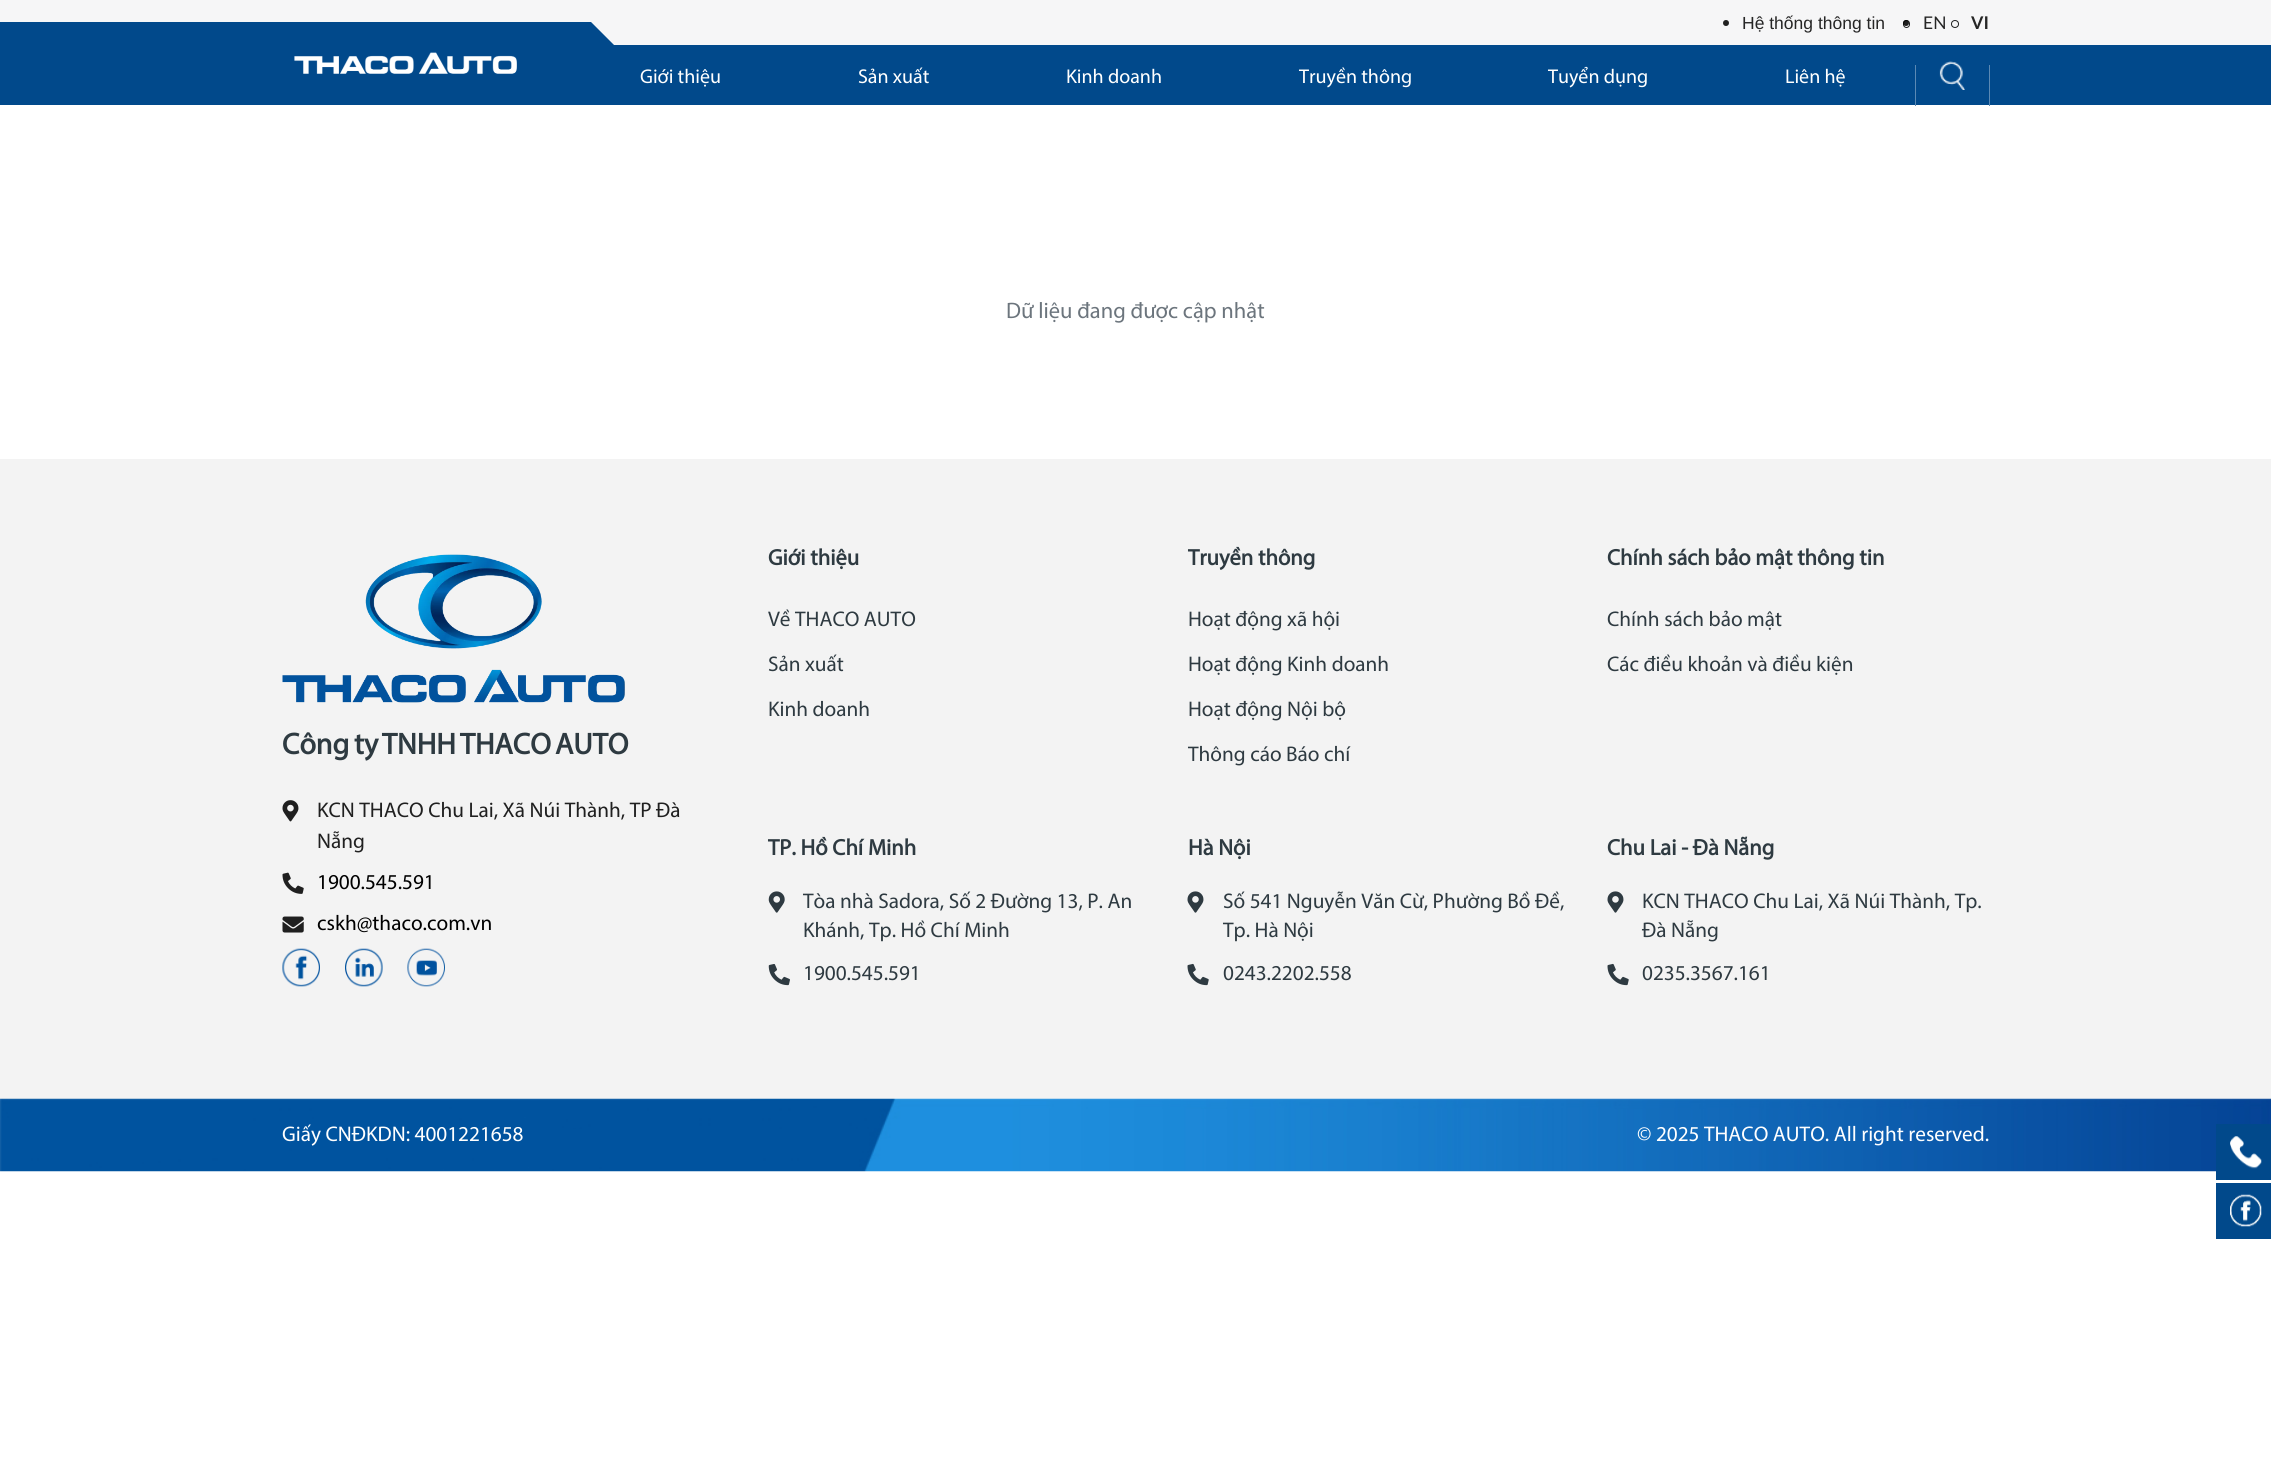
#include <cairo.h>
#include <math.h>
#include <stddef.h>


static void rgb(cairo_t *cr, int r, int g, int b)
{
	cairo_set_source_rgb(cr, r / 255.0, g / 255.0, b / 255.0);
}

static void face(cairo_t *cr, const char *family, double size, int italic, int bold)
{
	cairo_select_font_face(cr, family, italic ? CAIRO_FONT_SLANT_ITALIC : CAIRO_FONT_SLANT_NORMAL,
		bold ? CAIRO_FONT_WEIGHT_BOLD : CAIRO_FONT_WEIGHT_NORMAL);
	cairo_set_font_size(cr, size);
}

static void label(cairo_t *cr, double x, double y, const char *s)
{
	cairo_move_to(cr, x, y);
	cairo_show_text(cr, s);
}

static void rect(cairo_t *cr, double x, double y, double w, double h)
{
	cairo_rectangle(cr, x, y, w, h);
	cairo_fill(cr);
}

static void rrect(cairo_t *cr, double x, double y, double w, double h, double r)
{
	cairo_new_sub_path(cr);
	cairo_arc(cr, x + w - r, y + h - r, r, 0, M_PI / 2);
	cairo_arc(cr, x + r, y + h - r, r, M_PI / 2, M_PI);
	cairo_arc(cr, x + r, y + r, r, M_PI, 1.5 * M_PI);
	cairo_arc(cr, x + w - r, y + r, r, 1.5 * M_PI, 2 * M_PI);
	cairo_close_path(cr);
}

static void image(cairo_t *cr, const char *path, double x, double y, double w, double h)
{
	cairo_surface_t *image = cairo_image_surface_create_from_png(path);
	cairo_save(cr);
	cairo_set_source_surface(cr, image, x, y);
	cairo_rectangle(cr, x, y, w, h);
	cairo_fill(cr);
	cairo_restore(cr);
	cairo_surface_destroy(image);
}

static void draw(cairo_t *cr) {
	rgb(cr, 255, 255, 255);
	cairo_paint(cr);
	rgb(cr, 1, 73, 139);
	rect(cr, 0, 45, 2271, 60);
	rgb(cr, 246, 246, 247);
	rect(cr, 0, 0, 2271, 45);
	rgb(cr, 1, 73, 139);
	cairo_new_path(cr);
	cairo_move_to(cr, 614, 45);
	cairo_line_to(cr, 0, 45);
	cairo_line_to(cr, 0, 22);
	cairo_line_to(cr, 591, 22);
	cairo_close_path(cr);
	cairo_fill(cr);
	rgb(cr, 32, 32, 32);
	cairo_arc(cr, 1726, 23, 3, 0, 2 * M_PI);
	cairo_fill(cr);
	face(cr, "Liberation Sans", 17.5, 0, 0);
	rgb(cr, 38, 38, 38);
	label(cr, 1742, 29, "Hệ thống thông tin");
	rgb(cr, 32, 32, 32);
	cairo_new_path(cr);
	cairo_arc(cr, 1906, 23, 3, 0, 2 * M_PI);
	cairo_fill(cr);
	rrect(cr, 1903.5, 20.5, 6, 7, 3);
	cairo_set_source_rgba(cr, 0, 0, 0, 0.87);
	cairo_set_line_width(cr, 1);
	cairo_stroke(cr);
	face(cr, "Lato", 17.5, 0, 0);
	rgb(cr, 38, 38, 38);
	label(cr, 1923, 29, "EN");
	cairo_new_path(cr);
	cairo_arc(cr, 1955, 24, 3.5, 0, 2 * M_PI);
	rgb(cr, 32, 32, 32);
	cairo_stroke(cr);
	face(cr, "Lato", 17.5, 0, 1);
	rgb(cr, 38, 38, 38);
	label(cr, 1971, 29, "VI");
	image(cr, "image0.png", 294, 52, 223, 22);
	face(cr, "Myriad", 20, 0, 0);
	rgb(cr, 255, 255, 255);
	label(cr, 640, 83, "Giới thiệu");
	label(cr, 858, 83, "Sản xuất");
	label(cr, 1066, 83, "Kinh doanh");
	label(cr, 1299, 83, "Truyền thông");
	label(cr, 1548, 83, "Tuyển dụng");
	label(cr, 1785, 83, "Liên hệ");
	rgb(cr, 91, 137, 180);
	rect(cr, 1915, 65, 1, 41);
	image(cr, "image1.png", 1939, 61, 26, 29);
	rect(cr, 1989, 65, 1, 41);
	face(cr, "Myriad", 22.5, 0, 0);
	rgb(cr, 108, 117, 125);
	label(cr, 1006, 318, "Dữ liệu đang được cập nhật");
	rgb(cr, 243, 243, 243);
	rect(cr, 0, 459, 2271, 640);
	image(cr, "image2.png", 282, 554, 343, 149);
	face(cr, "Myriad", 30, 0, 1);
	rgb(cr, 46, 58, 65);
	label(cr, 282, 754, "Công");
	label(cr, 354, 754, "ty");
	label(cr, 382, 754, "TNHH");
	label(cr, 460, 754, "THACO");
	label(cr, 555, 754, "AUTO");
	image(cr, "image3.png", 282, 800, 17, 22);
	face(cr, "Myriad", 21.25, 0, 0);
	rgb(cr, 32, 32, 32);
	label(cr, 317, 817, "KCN THACO Chu Lai, Xã Núi Thành, TP Đà");
	label(cr, 317, 848, "Nẵng");
	image(cr, "image4.png", 282, 872, 22, 22);
	rgb(cr, 0, 0, 0);
	label(cr, 317, 889, "1900.545.591");
	image(cr, "image5.png", 282, 916, 22, 17);
	label(cr, 317, 930, "cskh@thaco.com.vn");
	image(cr, "image6.png", 282, 948, 38, 39);
	image(cr, "image7.png", 345, 948, 38, 39);
	image(cr, "image8.png", 407, 948, 38, 39);
	face(cr, "Myriad", 22.5, 0, 1);
	rgb(cr, 46, 58, 65);
	label(cr, 768, 565, "Giới thiệu");
	face(cr, "Myriad", 21.25, 0, 0);
	label(cr, 768, 626, "Về THACO AUTO");
	label(cr, 768, 671, "Sản xuất");
	label(cr, 768, 716, "Kinh doanh");
	face(cr, "Myriad", 22.5, 0, 1);
	label(cr, 1188, 565, "Truyền thông");
	face(cr, "Myriad", 21.25, 0, 0);
	label(cr, 1188, 626, "Hoạt động xã hội");
	label(cr, 1188, 671, "Hoạt động Kinh doanh");
	label(cr, 1188, 716, "Hoạt động Nội bộ");
	label(cr, 1188, 761, "Thông cáo Báo chí");
	face(cr, "Myriad", 22.5, 0, 1);
	label(cr, 1607, 565, "Chính sách bảo mật thông tin");
	face(cr, "Myriad", 21.25, 0, 0);
	label(cr, 1607, 626, "Chính sách bảo mật");
	label(cr, 1607, 671, "Các điều khoản và điều kiện");
	face(cr, "Myriad", 22.5, 0, 1);
	label(cr, 768, 855, "TP. Hồ Chí Minh");
	image(cr, "image9.png", 768, 891, 17, 22);
	face(cr, "Myriad", 21.25, 0, 0);
	label(cr, 803, 908, "Tòa nhà Sadora, Số 2 Đường 13, P. An");
	label(cr, 803, 937, "Khánh, Tp. Hồ Chí Minh");
	image(cr, "image10.png", 768, 964, 22, 22);
	label(cr, 803, 980, "1900.545.591");
	face(cr, "Myriad", 22.5, 0, 1);
	label(cr, 1188, 855, "Hà Nội");
	image(cr, "image11.png", 1187, 891, 17, 22);
	face(cr, "Myriad", 21.25, 0, 0);
	label(cr, 1223, 908, "Số 541 Nguyễn Văn Cừ, Phường Bồ Đề,");
	label(cr, 1223, 937, "Tp. Hà Nội");
	image(cr, "image12.png", 1187, 963, 22, 23);
	label(cr, 1223, 980, "0243.2202.558");
	face(cr, "Myriad", 22.5, 0, 1);
	label(cr, 1607, 855, "Chu Lai - Đà Nẵng");
	image(cr, "image11.png", 1607, 891, 17, 22);
	face(cr, "Myriad", 21.25, 0, 0);
	label(cr, 1642, 908, "KCN THACO Chu Lai, Xã Núi Thành, Tp.");
	label(cr, 1642, 937, "Đà Nẵng");
	image(cr, "image12.png", 1607, 963, 22, 23);
	label(cr, 1642, 980, "0235.3567.161");
	image(cr, "image13.png", 0, 1098, 2271, 74);
	rgb(cr, 255, 255, 255);
	label(cr, 282, 1141, "Giấy CNĐKDN: 4001221658");
	label(cr, 1637, 1141, "© 2025 THACO AUTO. All right reserved.");
	rgb(cr, 1, 73, 139);
	rect(cr, 2216, 1124, 55, 56);
	image(cr, "image14.png", 2230, 1136, 32, 33);
	rect(cr, 2216, 1183, 55, 56);
	image(cr, "image15.png", 2230, 1194, 32, 33);
}

int main(void) {
	cairo_surface_t *surface = cairo_image_surface_create(CAIRO_FORMAT_RGB24, 2271, 1457);
	cairo_t *cr = cairo_create(surface);
	cairo_font_options_t *options = cairo_font_options_create();
	cairo_font_options_set_hint_metrics(options, CAIRO_HINT_METRICS_OFF);
	cairo_font_options_set_hint_style(options, CAIRO_HINT_STYLE_NONE);
	cairo_set_font_options(cr, options);
	cairo_set_miter_limit(cr, 4);
	draw(cr);
	cairo_surface_write_to_png(surface, "render.png");
	cairo_font_options_destroy(options);
	cairo_destroy(cr);
	cairo_surface_destroy(surface);
	return 0;
}
